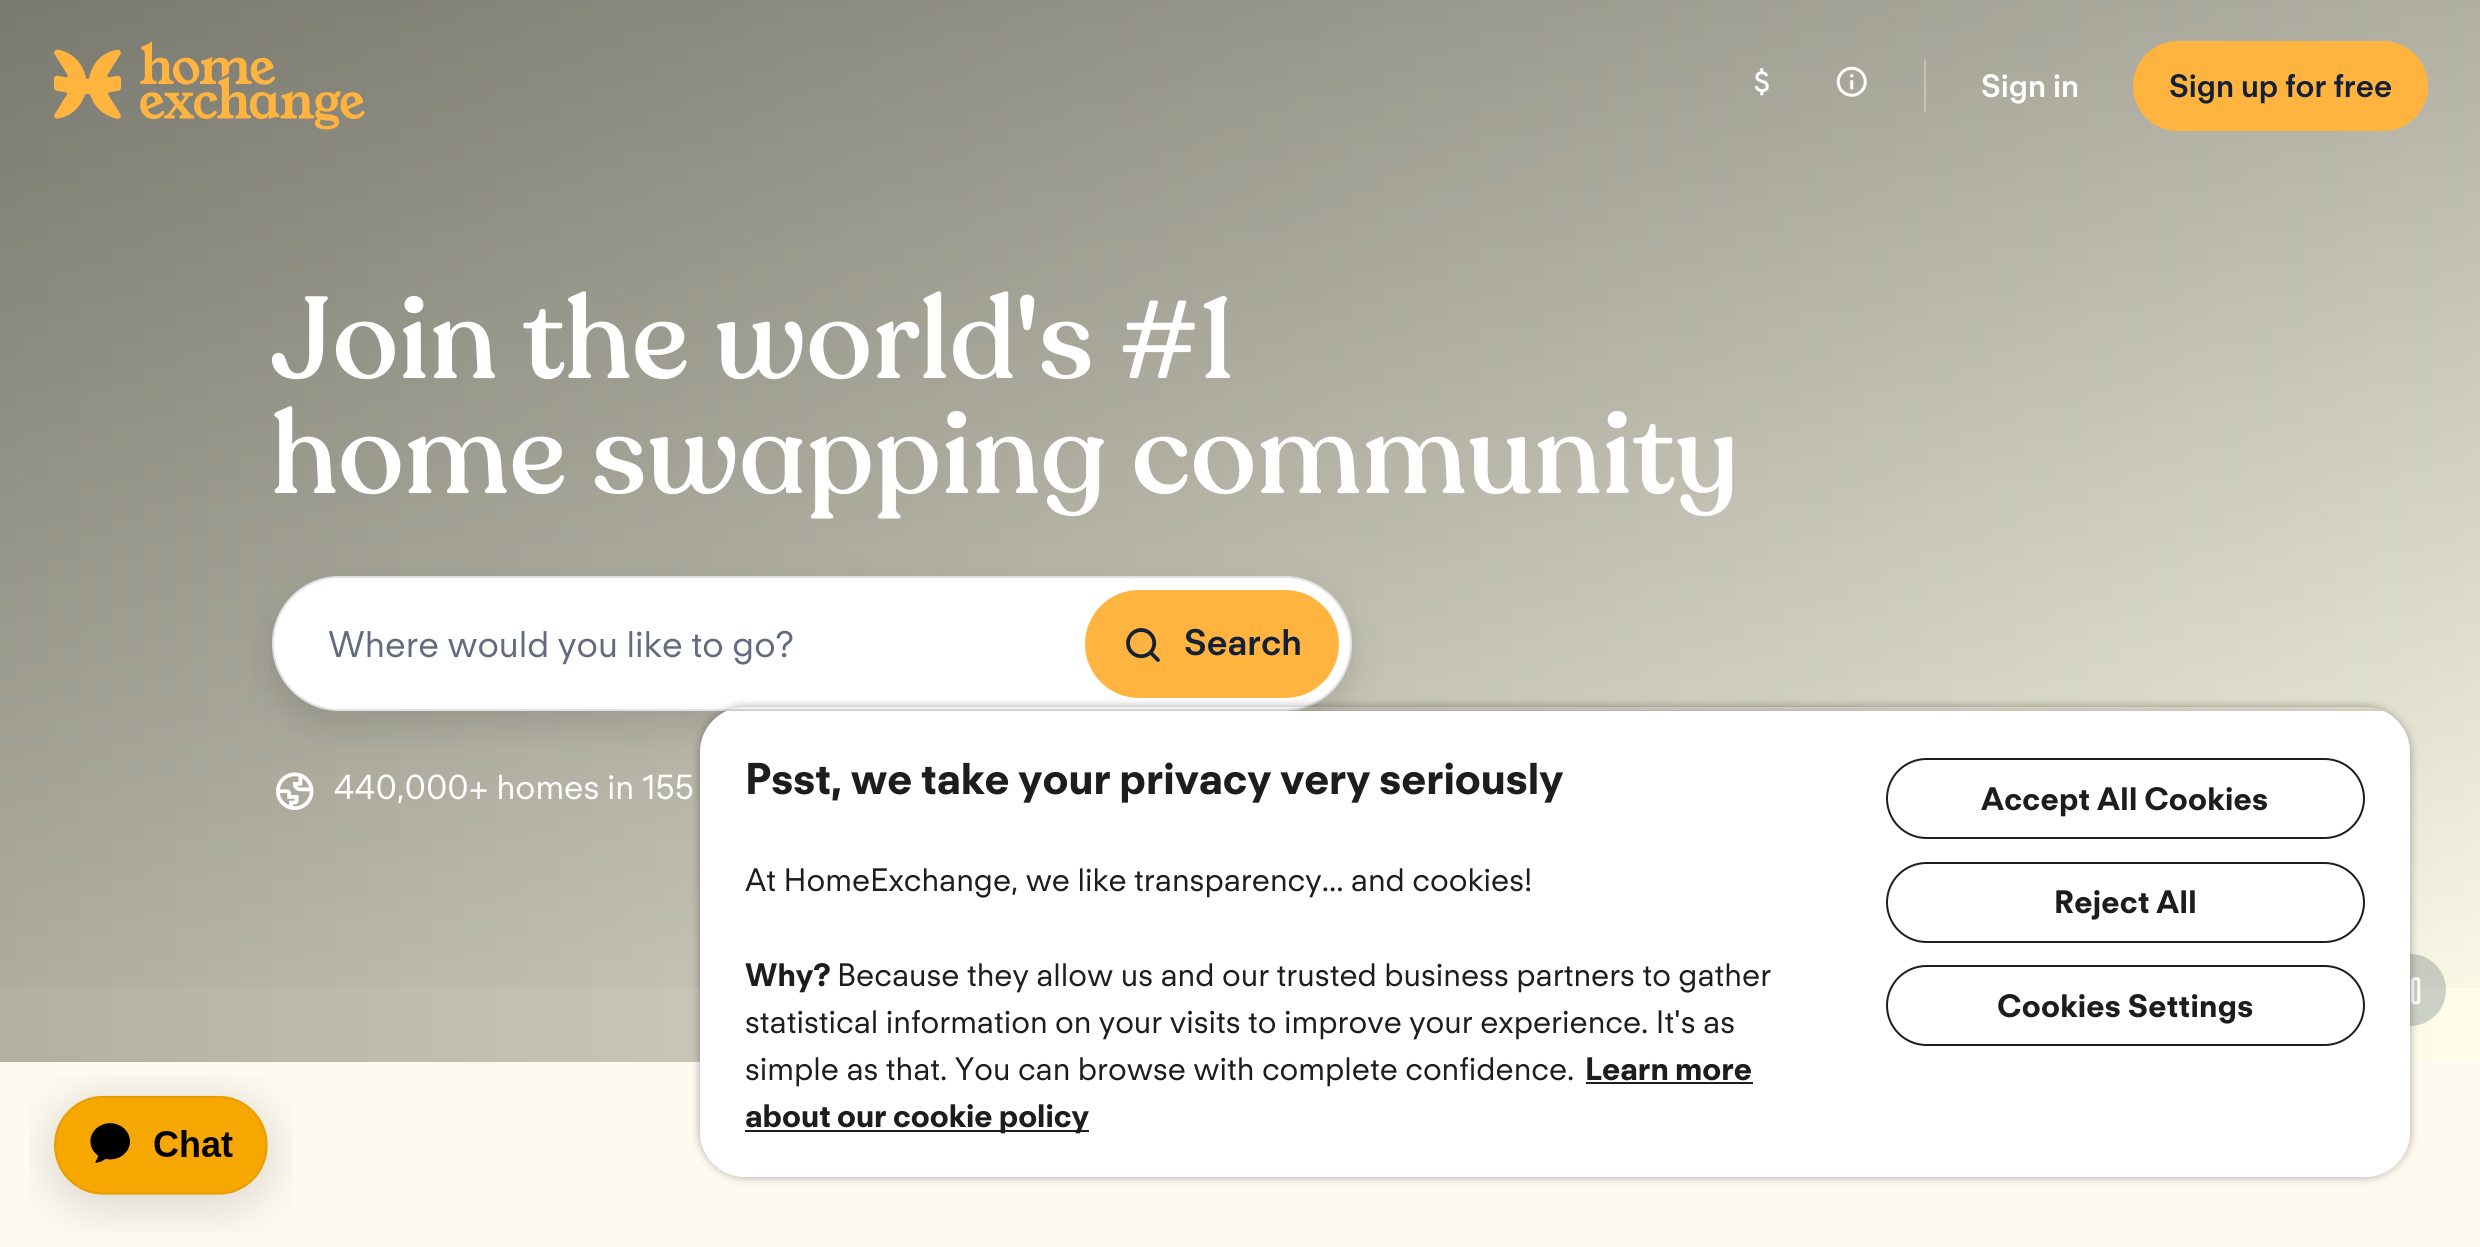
#include <cairo.h>
#include <math.h>
#include <stddef.h>


static void rgb(cairo_t *cr, int r, int g, int b)
{
	cairo_set_source_rgb(cr, r / 255.0, g / 255.0, b / 255.0);
}

static void face(cairo_t *cr, const char *family, double size, int italic, int bold)
{
	cairo_select_font_face(cr, family, italic ? CAIRO_FONT_SLANT_ITALIC : CAIRO_FONT_SLANT_NORMAL,
		bold ? CAIRO_FONT_WEIGHT_BOLD : CAIRO_FONT_WEIGHT_NORMAL);
	cairo_set_font_size(cr, size);
}

static void label(cairo_t *cr, double x, double y, const char *s)
{
	cairo_move_to(cr, x, y);
	cairo_show_text(cr, s);
}

static void tracked(cairo_t *cr, double x, double y, const char *s, double letter, double word)
{
	cairo_move_to(cr, x, y);
	while (*s) {
		char ch[5] = {0};
		int n = 0;
		do ch[n++] = *s++; while ((*s & 0xC0) == 0x80);
		cairo_show_text(cr, ch);
		cairo_rel_move_to(cr, letter + word * (*ch == ' '), 0);
	}
}

static void rect(cairo_t *cr, double x, double y, double w, double h)
{
	cairo_rectangle(cr, x, y, w, h);
	cairo_fill(cr);
}

static void rrect(cairo_t *cr, double x, double y, double w, double h, double r)
{
	cairo_new_sub_path(cr);
	cairo_arc(cr, x + w - r, y + h - r, r, 0, M_PI / 2);
	cairo_arc(cr, x + r, y + h - r, r, M_PI / 2, M_PI);
	cairo_arc(cr, x + r, y + r, r, M_PI, 1.5 * M_PI);
	cairo_arc(cr, x + w - r, y + r, r, 1.5 * M_PI, 2 * M_PI);
	cairo_close_path(cr);
}

static void soft_shadow(cairo_t *cr, double x, double y, double w, double h, double r, double blur, double alpha)
{
	cairo_push_group_with_content(cr, CAIRO_CONTENT_ALPHA);
	cairo_set_operator(cr, CAIRO_OPERATOR_SOURCE);
	for (int i = 15; i >= -15 && fmin(w, h) + blur * i / 3 > 0; i -= 2) {
		double e = blur * i / 6;
		cairo_set_source_rgba(cr, 0, 0, 0, alpha * erfc((i - 1) / 8.5) / 2);
		rrect(cr, x - e, y - e, w + 2 * e, h + 2 * e, fmax(0, fmin(r + e + blur * .6, fmin(w, h) / 2 + e)));
		cairo_fill(cr);
	}
	cairo_pattern_t *soft = cairo_pop_group(cr);
	cairo_mask(cr, soft);
	cairo_pattern_destroy(soft);
}

static void image(cairo_t *cr, const char *path, double x, double y, double w, double h)
{
	cairo_surface_t *image = cairo_image_surface_create_from_png(path);
	cairo_save(cr);
	cairo_set_source_surface(cr, image, x, y);
	cairo_rectangle(cr, x, y, w, h);
	cairo_fill(cr);
	cairo_restore(cr);
	cairo_surface_destroy(image);
}

static void draw(cairo_t *cr) {
	cairo_pattern_t *gradient;
	rgb(cr, 254, 250, 239);
	cairo_paint(cr);
	gradient = cairo_pattern_create_linear(0, 531, 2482, 531);
	cairo_pattern_add_color_stop_rgba(gradient, 0, 0.694, 0.69, 0.635, 1);
	cairo_pattern_add_color_stop_rgba(gradient, 1, 1, 0.996, 0.922, 1);
	cairo_set_source(cr, gradient);
	cairo_pattern_destroy(gradient);
	rect(cr, 0, 0, 2480, 1062);
	gradient = cairo_pattern_create_linear(1241, 1062, 1241, 0);
	cairo_pattern_add_color_stop_rgba(gradient, 0, 0, 0, 0, 0);
	cairo_pattern_add_color_stop_rgba(gradient, 1, 0, 0, 0, 0.31);
	cairo_set_source(cr, gradient);
	cairo_pattern_destroy(gradient);
	rect(cr, 0, 0, 2480, 988);
	image(cr, "image0.png", 54, 41, 311, 89);
	image(cr, "image1.png", 1754, 68, 15, 28);
	image(cr, "image2.png", 1836, 66, 31, 31);
	cairo_set_source_rgba(cr, 1, 1, 1, 0.31);
	rrect(cr, 1924, 59, 2, 54, 1);
	cairo_fill(cr);
	face(cr, "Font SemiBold", 31.5, 0, 0);
	rgb(cr, 255, 255, 255);
	label(cr, 1981, 97, "Sign in");
	rgb(cr, 255, 180, 64);
	rrect(cr, 2133, 41, 295, 90, 45);
	cairo_fill(cr);
	rgb(cr, 19, 32, 53);
	label(cr, 2169, 97, "Sign up for free");
	cairo_set_source_rgba(cr, 0.075, 0.125, 0.208, 0.2);
	cairo_new_path(cr);
	cairo_arc(cr, 2410, 990, 36, 0, 2 * M_PI);
	cairo_fill(cr);
	image(cr, "image3.png", 2411, 977, 10, 28);
	face(cr, "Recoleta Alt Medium", 115.1, 0, 0);
	rgb(cr, 255, 255, 255);
	label(cr, 271, 378, "Join the world's #1");
	label(cr, 271, 493, "home swapping community");
	image(cr, "image5.png", 276, 772, 38, 38);
	rgb(cr, 0, 0, 0);
	soft_shadow(cr, 272, 590, 1080, 135, 67.5, 18, 0.12);
	rgb(cr, 255, 255, 255);
	rrect(cr, 272, 576, 1080, 135, 67.5);
	cairo_fill(cr);
	rrect(cr, 273, 577, 1078, 133, 66.5);
	cairo_set_source_rgba(cr, 0.075, 0.125, 0.208, 0.13);
	cairo_stroke(cr);
	face(cr, "Font", 36, 0, 0);
	rgb(cr, 99, 108, 126);
	label(cr, 328, 657, "Where would you like to go?");
	rgb(cr, 255, 180, 64);
	rrect(cr, 1085, 590, 254, 108, 54);
	cairo_fill(cr);
	image(cr, "image4.png", 1126, 628, 34, 34);
	face(cr, "Font SemiBold", 36, 0, 0);
	rgb(cr, 19, 32, 53);
	label(cr, 1184, 655, "Search");
	face(cr, "Font", 33.75, 0, 0);
	rgb(cr, 255, 255, 255);
	label(cr, 334, 799, "440,000+ homes in 155");
	cairo_save(cr);
	cairo_set_fill_rule(cr, CAIRO_FILL_RULE_EVEN_ODD);
	cairo_new_path(cr);
	cairo_move_to(cr, 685, 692);
	cairo_line_to(cr, 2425, 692);
	cairo_line_to(cr, 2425, 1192);
	cairo_line_to(cr, 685, 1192);
	cairo_close_path(cr);
	cairo_move_to(cr, 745, 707);
	cairo_line_to(cr, 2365, 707);
	cairo_curve_to(cr, 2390, 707, 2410, 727, 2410, 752);
	cairo_line_to(cr, 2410, 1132);
	cairo_curve_to(cr, 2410, 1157, 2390, 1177, 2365, 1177);
	cairo_line_to(cr, 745, 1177);
	cairo_curve_to(cr, 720, 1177, 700, 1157, 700, 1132);
	cairo_line_to(cr, 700, 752);
	cairo_curve_to(cr, 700, 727, 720, 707, 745, 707);
	cairo_close_path(cr);
	cairo_clip(cr);
	rgb(cr, 0, 0, 0);
	soft_shadow(cr, 700, 707, 1710, 470, 45, 4.5, 0.35);
	cairo_restore(cr);
	cairo_save(cr);
	rrect(cr, 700, 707, 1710, 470, 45);
	cairo_clip(cr);
	rgb(cr, 0, 0, 0);
	soft_shadow(cr, 700, 711, 1710, 466, 0, 4.5, 0.2);
	cairo_restore(cr);
	cairo_save(cr);
	rrect(cr, 700, 707, 1710, 470, 45);
	cairo_clip(cr);
	cairo_new_path(cr);
	cairo_move_to(cr, 700, 711);
	cairo_line_to(cr, 2410, 711);
	cairo_line_to(cr, 2410, 1132);
	cairo_curve_to(cr, 2410, 1157, 2390, 1177, 2365, 1177);
	cairo_line_to(cr, 745, 1177);
	cairo_curve_to(cr, 720, 1177, 700, 1157, 700, 1132);
	cairo_close_path(cr);
	cairo_fill(cr);
	cairo_restore(cr);
	face(cr, "Font", 43.25, 0, 1);
	rgb(cr, 30, 29, 29);
	label(cr, 745, 794, "Psst, we take your privacy very seriously");
	face(cr, "Font", 31.5, 0, 0);
	label(cr, 745, 891, "At HomeExchange, we like transparency... and cookies!");
	face(cr, "Font", 31.5, 0, 1);
	label(cr, 745, 986, "Why?");
	face(cr, "Font", 31.5, 0, 0);
	label(cr, 837, 986, "Because they allow us and our trusted business partners to gather");
	label(cr, 745, 1033, "statistical information on your visits to improve your experience. It's as");
	label(cr, 745, 1080, "simple as that. You can browse with complete confidence.");
	face(cr, "Font", 31.5, 0, 1);
	label(cr, 1585, 1080, "Learn more");
	rect(cr, 1586, 1082, 167, 2);
	rect(cr, 745, 1130, 344, 2);
	label(cr, 745, 1127, "about our cookie policy");
	rrect(cr, 1887, 759, 477, 79, 39.5);
	cairo_stroke(cr);
	tracked(cr, 1981, 810, "Accept All Cookies", 0.3, 0);
	rrect(cr, 1887, 863, 477, 79, 39.5);
	cairo_stroke(cr);
	tracked(cr, 2054, 913, "Reject All", 0.3, 0);
	rrect(cr, 1887, 966, 477, 79, 39.5);
	cairo_stroke(cr);
	tracked(cr, 1997, 1017, "Cookies Settings", 0.3, 0);
	image(cr, "image6.png", 29, 1076, 263, 156);
}

int main(void) {
	cairo_surface_t *surface = cairo_image_surface_create(CAIRO_FORMAT_RGB24, 2480, 1247);
	cairo_t *cr = cairo_create(surface);
	cairo_font_options_t *options = cairo_font_options_create();
	cairo_font_options_set_hint_metrics(options, CAIRO_HINT_METRICS_OFF);
	cairo_font_options_set_hint_style(options, CAIRO_HINT_STYLE_NONE);
	cairo_set_font_options(cr, options);
	cairo_set_miter_limit(cr, 4);
	draw(cr);
	cairo_surface_write_to_png(surface, "render.png");
	cairo_font_options_destroy(options);
	cairo_destroy(cr);
	cairo_surface_destroy(surface);
	return 0;
}
